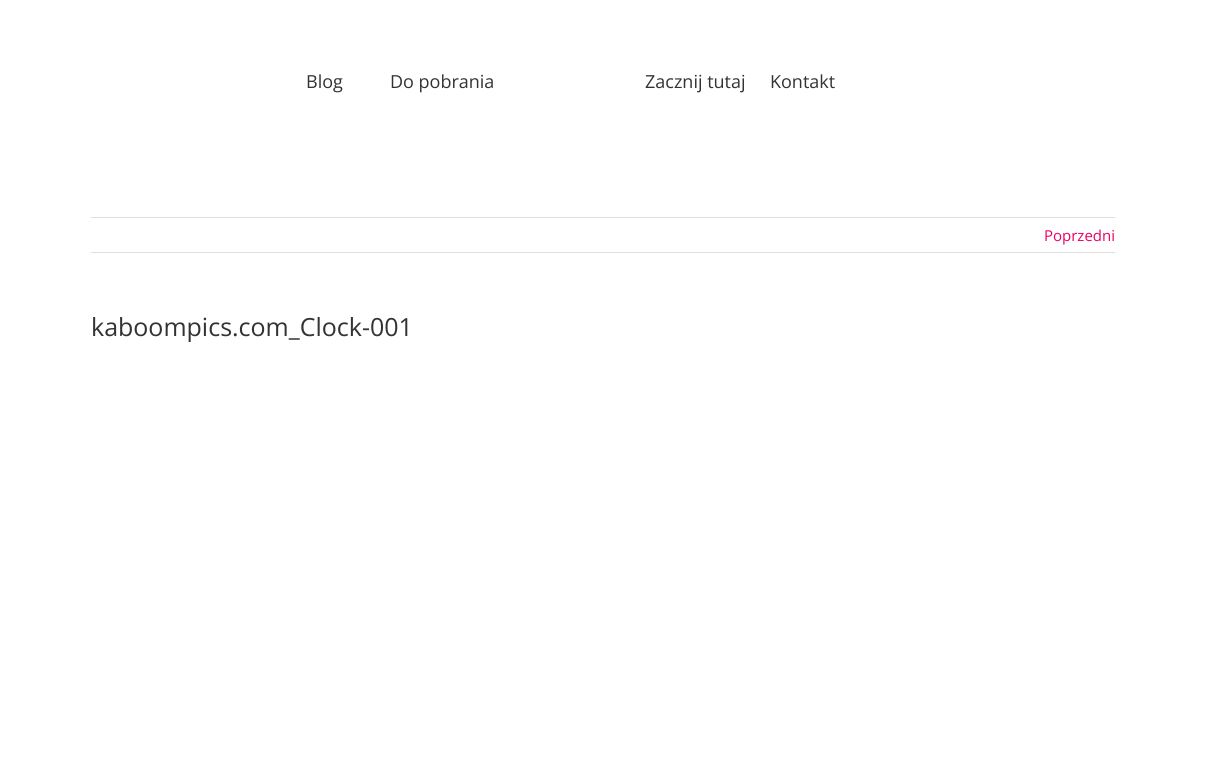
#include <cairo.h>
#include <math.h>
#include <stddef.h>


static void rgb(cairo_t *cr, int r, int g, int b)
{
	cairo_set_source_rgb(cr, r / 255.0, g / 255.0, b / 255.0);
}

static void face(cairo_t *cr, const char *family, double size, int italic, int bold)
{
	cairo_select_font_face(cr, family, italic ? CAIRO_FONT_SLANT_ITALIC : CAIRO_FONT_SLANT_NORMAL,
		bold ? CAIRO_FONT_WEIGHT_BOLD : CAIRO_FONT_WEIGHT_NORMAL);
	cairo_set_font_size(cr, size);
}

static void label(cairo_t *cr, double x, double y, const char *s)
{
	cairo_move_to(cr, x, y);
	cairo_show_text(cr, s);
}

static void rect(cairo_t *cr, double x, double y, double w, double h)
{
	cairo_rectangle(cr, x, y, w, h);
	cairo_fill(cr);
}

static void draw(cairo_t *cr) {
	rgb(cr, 255, 255, 255);
	cairo_paint(cr);
	face(cr, "Open Sans", 18, 0, 0);
	rgb(cr, 51, 51, 51);
	label(cr, 306, 88, "Blog");
	label(cr, 390, 88, "Do pobrania");
	label(cr, 645, 88, "Zacznij tutaj");
	label(cr, 770, 88, "Kontakt");
	rgb(cr, 224, 222, 222);
	rect(cr, 91, 217, 1024, 1);
	rect(cr, 91, 252, 1024, 1);
	face(cr, "Open Sans", 15, 0, 0);
	rgb(cr, 235, 1, 101);
	label(cr, 1044, 241, "Poprzedni");
	face(cr, "Open Sans", 25, 0, 0);
	rgb(cr, 51, 51, 51);
	label(cr, 91, 336, "kaboompics.com_Clock-001");
}

int main(void) {
	cairo_surface_t *surface = cairo_image_surface_create(CAIRO_FORMAT_RGB24, 1205, 776);
	cairo_t *cr = cairo_create(surface);
	cairo_font_options_t *options = cairo_font_options_create();
	cairo_font_options_set_hint_metrics(options, CAIRO_HINT_METRICS_OFF);
	cairo_font_options_set_hint_style(options, CAIRO_HINT_STYLE_NONE);
	cairo_set_font_options(cr, options);
	cairo_set_miter_limit(cr, 4);
	draw(cr);
	cairo_surface_write_to_png(surface, "render.png");
	cairo_font_options_destroy(options);
	cairo_destroy(cr);
	cairo_surface_destroy(surface);
	return 0;
}
